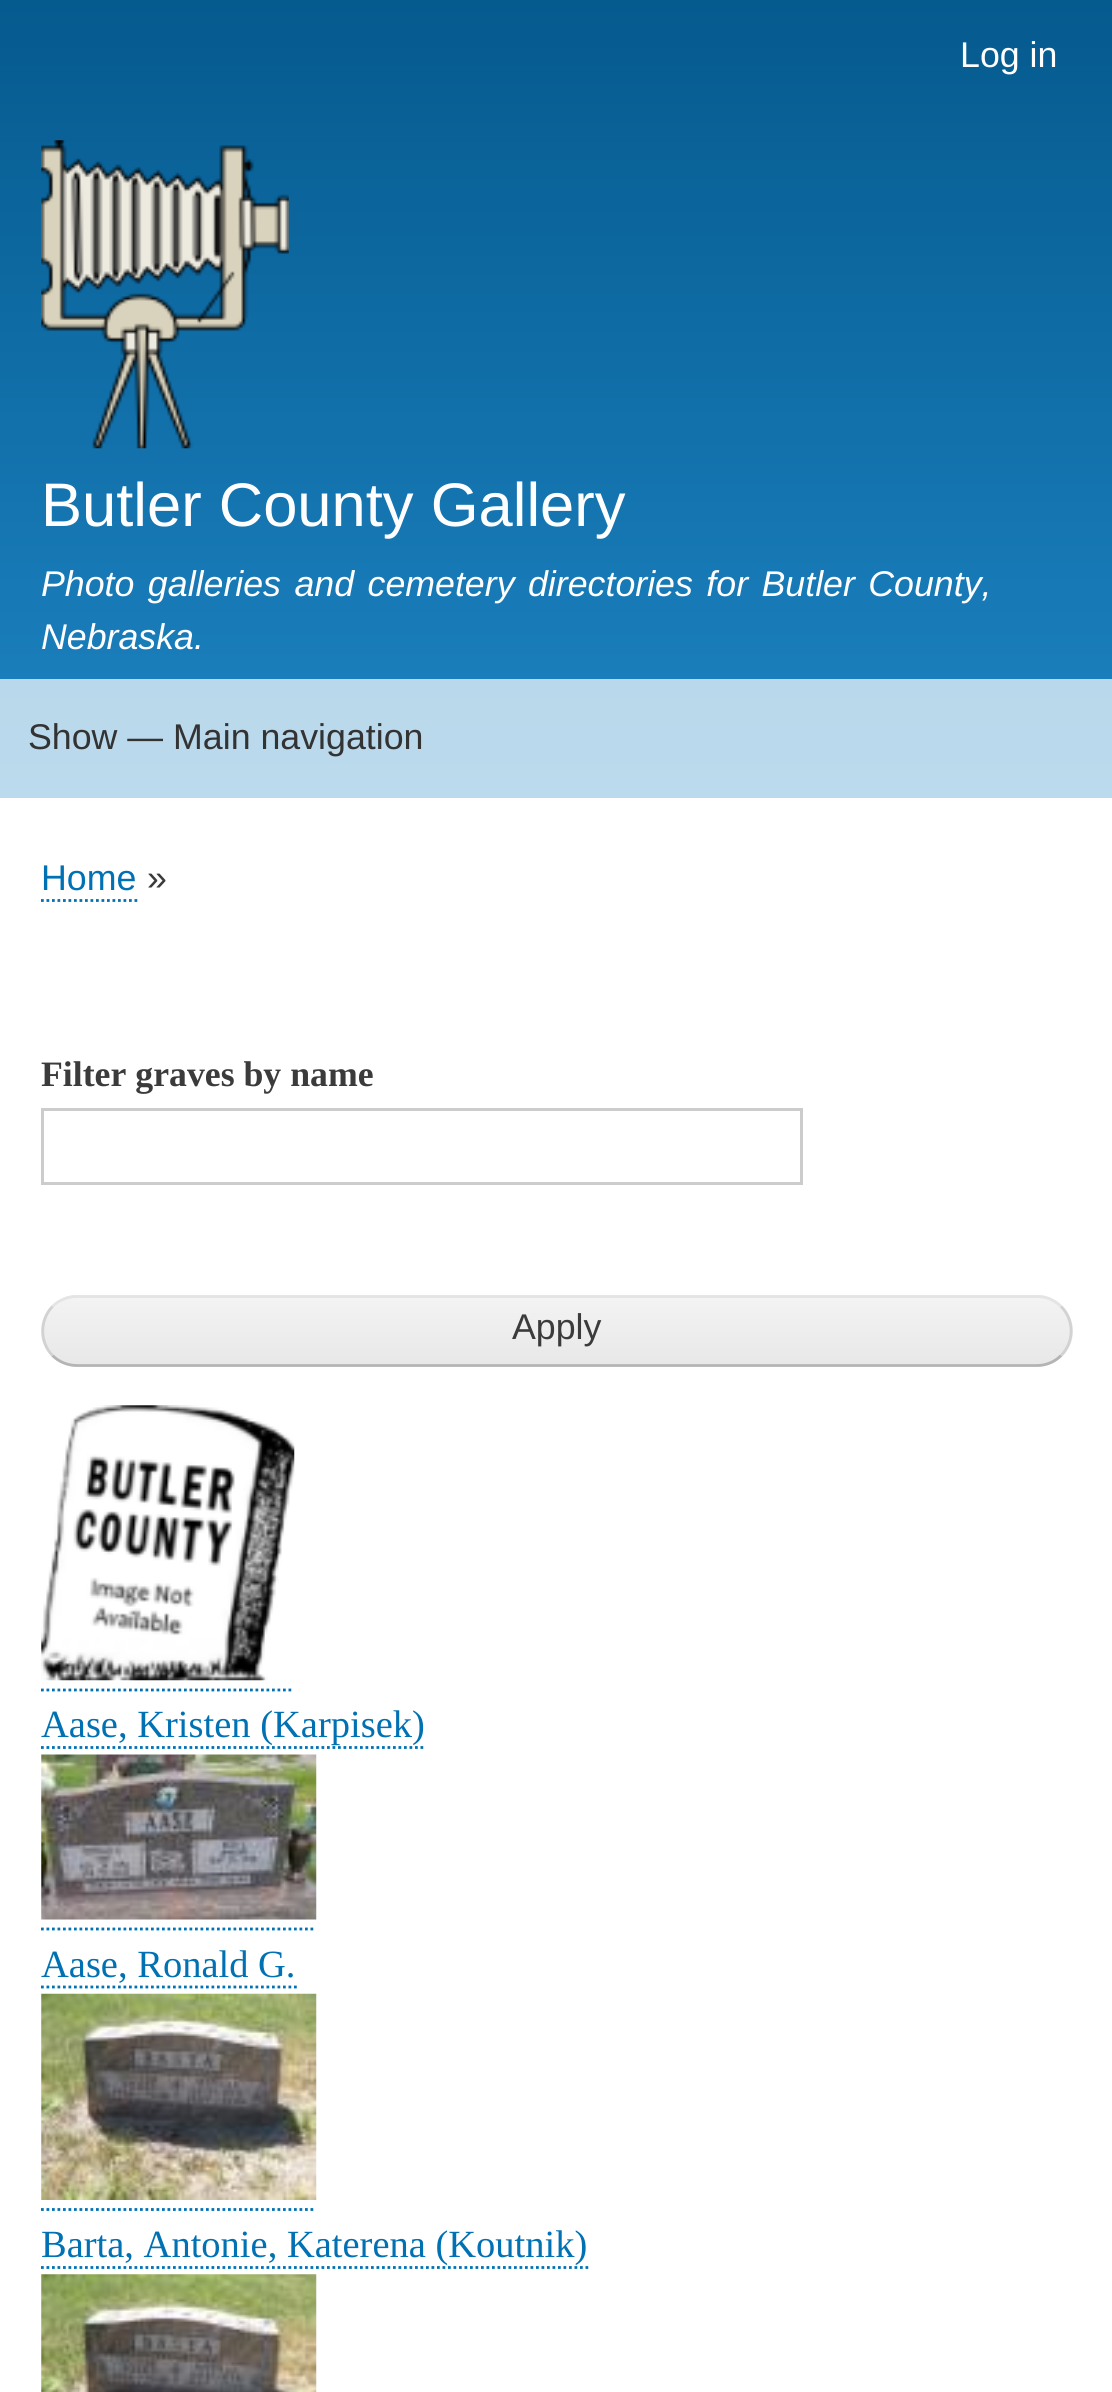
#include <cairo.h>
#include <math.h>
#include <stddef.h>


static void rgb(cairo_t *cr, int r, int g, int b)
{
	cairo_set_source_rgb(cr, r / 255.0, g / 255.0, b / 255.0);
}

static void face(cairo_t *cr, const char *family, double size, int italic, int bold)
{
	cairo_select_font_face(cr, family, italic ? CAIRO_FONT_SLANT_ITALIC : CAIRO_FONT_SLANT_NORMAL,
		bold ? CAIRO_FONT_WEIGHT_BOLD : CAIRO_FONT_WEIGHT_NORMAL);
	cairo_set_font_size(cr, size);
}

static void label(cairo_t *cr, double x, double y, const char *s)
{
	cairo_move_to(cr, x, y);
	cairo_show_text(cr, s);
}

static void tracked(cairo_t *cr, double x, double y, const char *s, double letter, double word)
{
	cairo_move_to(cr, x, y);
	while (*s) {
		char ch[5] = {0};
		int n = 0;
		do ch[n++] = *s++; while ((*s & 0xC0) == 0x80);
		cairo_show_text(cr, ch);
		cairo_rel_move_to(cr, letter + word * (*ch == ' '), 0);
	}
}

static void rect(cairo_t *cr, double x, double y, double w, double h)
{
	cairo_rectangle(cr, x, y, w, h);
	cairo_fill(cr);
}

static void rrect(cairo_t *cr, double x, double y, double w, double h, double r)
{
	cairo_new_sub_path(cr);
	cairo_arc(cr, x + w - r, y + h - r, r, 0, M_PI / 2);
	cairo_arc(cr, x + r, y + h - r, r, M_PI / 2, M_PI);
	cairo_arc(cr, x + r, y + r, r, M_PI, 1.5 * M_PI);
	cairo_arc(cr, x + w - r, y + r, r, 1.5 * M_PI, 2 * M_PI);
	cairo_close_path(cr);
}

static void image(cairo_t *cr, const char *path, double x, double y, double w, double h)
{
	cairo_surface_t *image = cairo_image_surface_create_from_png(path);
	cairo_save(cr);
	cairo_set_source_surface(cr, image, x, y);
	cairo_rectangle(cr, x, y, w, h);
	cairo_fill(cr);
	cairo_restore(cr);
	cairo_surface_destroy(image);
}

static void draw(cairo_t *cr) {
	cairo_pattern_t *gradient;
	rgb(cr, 255, 255, 255);
	cairo_paint(cr);
	gradient = cairo_pattern_create_linear(557, 0, 557, 798);
	cairo_pattern_add_color_stop_rgba(gradient, 0, 0.02, 0.353, 0.557, 1);
	cairo_pattern_add_color_stop_rgba(gradient, 1, 0.114, 0.518, 0.765, 1);
	cairo_set_source(cr, gradient);
	cairo_pattern_destroy(gradient);
	rect(cr, 0, 0, 1112, 679);
	gradient = cairo_pattern_create_linear(557, 0, 557, 798);
	cairo_pattern_add_color_stop_rgba(gradient, 0, 0.706, 0.808, 0.867, 1);
	cairo_pattern_add_color_stop_rgba(gradient, 1, 0.733, 0.855, 0.929, 1);
	cairo_set_source(cr, gradient);
	cairo_pattern_destroy(gradient);
	rect(cr, 0, 679, 1112, 119);
	face(cr, "Liberation Sans", 35.75, 0, 0);
	rgb(cr, 255, 254, 255);
	label(cr, 960, 67, "Log in");
	image(cr, "image0.png", 41, 140, 248, 309);
	face(cr, "Liberation Sans", 61.5, 0, 0);
	label(cr, 41, 526, "Butler County Gallery");
	face(cr, "Liberation Sans", 35.75, 1, 0);
	tracked(cr, 41, 596, "Photo galleries and cemetery directories for Butler County,", 0, 3.5);
	label(cr, 41, 649, "Nebraska.");
	face(cr, "Liberation Sans", 35.75, 0, 0);
	rgb(cr, 51, 51, 51);
	label(cr, 28, 749, "Show — Main navigation");
	rgb(cr, 0, 113, 179);
	label(cr, 41, 890, "Home");
	cairo_new_path(cr);
	cairo_move_to(cr, 41, 900.5);
	cairo_line_to(cr, 137.5, 900.5);
	cairo_set_line_width(cr, 2.8);
	cairo_set_dash(cr, (double[]){2.75, 2.75}, 2, 0);
	cairo_stroke(cr);
	rgb(cr, 59, 59, 59);
	label(cr, 147, 890, "»");
	face(cr, "Liberation Serif", 35.75, 0, 1);
	label(cr, 41, 1086, "Filter graves by name");
	cairo_rectangle(cr, 42.5, 1109.5, 759, 74);
	rgb(cr, 204, 204, 204);
	cairo_set_line_width(cr, 3);
	cairo_set_dash(cr, NULL, 0, 0);
	cairo_stroke(cr);
	cairo_save(cr);
	rrect(cr, 41, 1295, 1032, 72, 36);
	cairo_clip(cr);
	gradient = cairo_pattern_create_linear(557, 1232, 557, 1298);
	cairo_pattern_add_color_stop_rgba(gradient, 0, 0.953, 0.953, 0.953, 1);
	cairo_pattern_add_color_stop_rgba(gradient, 1, 0.91, 0.91, 0.91, 1);
	cairo_set_source(cr, gradient);
	cairo_pattern_destroy(gradient);
	rect(cr, 62, 1295, 990, 3);
	gradient = cairo_pattern_create_linear(557, 1298, 557, 1364);
	cairo_pattern_add_color_stop_rgba(gradient, 0, 0.953, 0.953, 0.953, 1);
	cairo_pattern_add_color_stop_rgba(gradient, 1, 0.91, 0.91, 0.91, 1);
	cairo_set_source(cr, gradient);
	cairo_pattern_destroy(gradient);
	rect(cr, 41, 1298, 1032, 66);
	gradient = cairo_pattern_create_linear(557, 1364, 557, 1430);
	cairo_pattern_add_color_stop_rgba(gradient, 0, 0.953, 0.953, 0.953, 1);
	cairo_pattern_add_color_stop_rgba(gradient, 1, 0.91, 0.91, 0.91, 1);
	cairo_set_source(cr, gradient);
	cairo_pattern_destroy(gradient);
	rect(cr, 62, 1364, 990, 3);
	cairo_restore(cr);
	cairo_new_path(cr);
	cairo_move_to(cr, 52.5, 1306.5);
	cairo_curve_to(cr, 59, 1300, 68, 1296.5, 77, 1296.5);
	cairo_line_to(cr, 1037, 1296.5);
	cairo_curve_to(cr, 1046, 1296.5, 1054.5, 1300, 1061, 1306.5);
	rgb(cr, 228, 228, 228);
	cairo_set_line_width(cr, 2.8);
	cairo_stroke(cr);
	cairo_new_path(cr);
	cairo_move_to(cr, 1061, 1306.5);
	cairo_curve_to(cr, 1074.5, 1320, 1074.5, 1342, 1061, 1355.5);
	rgb(cr, 210, 210, 210);
	cairo_stroke(cr);
	cairo_new_path(cr);
	cairo_move_to(cr, 1061, 1355.5);
	cairo_curve_to(cr, 1054.5, 1362, 1046, 1365.5, 1037, 1365.5);
	cairo_line_to(cr, 77, 1365.5);
	cairo_curve_to(cr, 68, 1365.5, 59, 1362, 52.5, 1355.5);
	rgb(cr, 180, 180, 180);
	cairo_stroke(cr);
	cairo_new_path(cr);
	cairo_move_to(cr, 52.5, 1355.5);
	cairo_curve_to(cr, 39.5, 1342, 39.5, 1320, 52.5, 1306.5);
	rgb(cr, 210, 210, 210);
	cairo_stroke(cr);
	face(cr, "Liberation Sans", 35.75, 0, 0);
	rgb(cr, 59, 59, 59);
	label(cr, 512, 1339, "Apply");
	image(cr, "image1.png", 41, 1405, 254, 276);
	cairo_new_path(cr);
	cairo_move_to(cr, 41, 1690);
	cairo_line_to(cr, 294, 1690);
	rgb(cr, 0, 113, 179);
	cairo_set_dash(cr, (double[]){2.75, 2.75}, 2, 0);
	cairo_stroke(cr);
	face(cr, "Liberation Serif", 38.5, 0, 0);
	label(cr, 41, 1737, "Aase, Kristen (Karpisek)");
	cairo_new_path(cr);
	cairo_move_to(cr, 41, 1747.5);
	cairo_line_to(cr, 426, 1747.5);
	cairo_stroke(cr);
	image(cr, "image2.png", 41, 1754, 276, 166);
	cairo_new_path(cr);
	cairo_move_to(cr, 41, 1929);
	cairo_line_to(cr, 316, 1929);
	cairo_stroke(cr);
	label(cr, 41, 1977, "Aase, Ronald G.");
	cairo_new_path(cr);
	cairo_move_to(cr, 41, 1987);
	cairo_line_to(cr, 297, 1987);
	cairo_stroke(cr);
	image(cr, "image3.png", 41, 1993, 276, 207);
	cairo_new_path(cr);
	cairo_move_to(cr, 41, 2209.5);
	cairo_line_to(cr, 316, 2209.5);
	cairo_stroke(cr);
	label(cr, 41, 2257, "Barta, Antonie, Katerena (Koutnik)");
	cairo_new_path(cr);
	cairo_move_to(cr, 41, 2267.5);
	cairo_line_to(cr, 588.5, 2267.5);
	cairo_stroke(cr);
	image(cr, "image4.png", 41, 2274, 276, 118);
}

int main(void) {
	cairo_surface_t *surface = cairo_image_surface_create(CAIRO_FORMAT_RGB24, 1112, 2392);
	cairo_t *cr = cairo_create(surface);
	cairo_font_options_t *options = cairo_font_options_create();
	cairo_font_options_set_hint_metrics(options, CAIRO_HINT_METRICS_OFF);
	cairo_font_options_set_hint_style(options, CAIRO_HINT_STYLE_NONE);
	cairo_set_font_options(cr, options);
	cairo_set_miter_limit(cr, 4);
	draw(cr);
	cairo_surface_write_to_png(surface, "render.png");
	cairo_font_options_destroy(options);
	cairo_destroy(cr);
	cairo_surface_destroy(surface);
	return 0;
}
